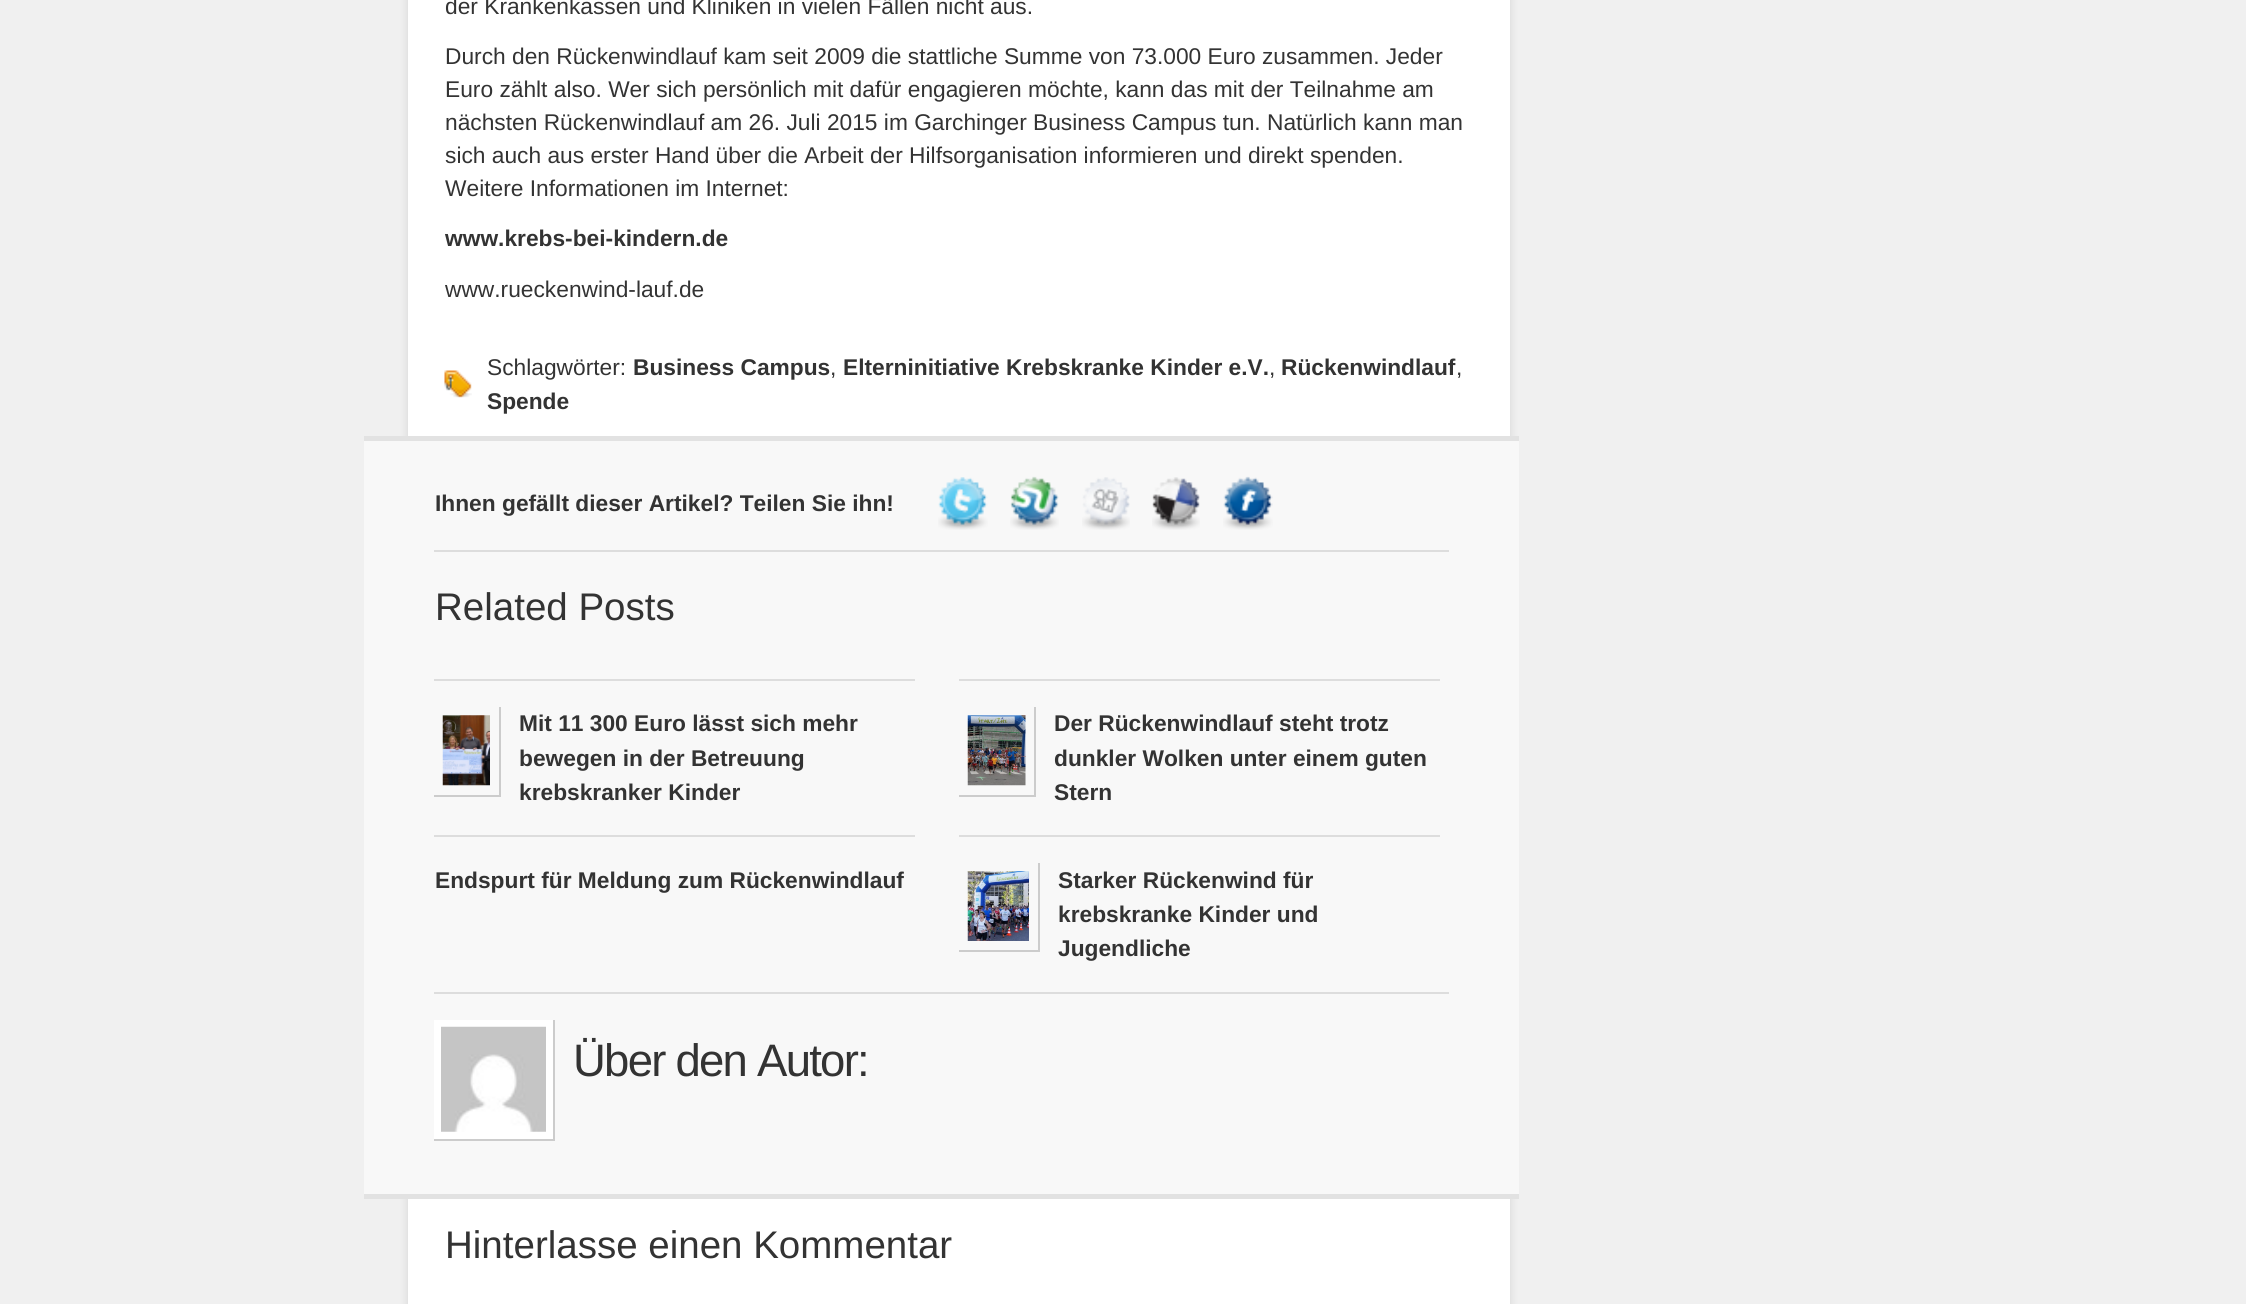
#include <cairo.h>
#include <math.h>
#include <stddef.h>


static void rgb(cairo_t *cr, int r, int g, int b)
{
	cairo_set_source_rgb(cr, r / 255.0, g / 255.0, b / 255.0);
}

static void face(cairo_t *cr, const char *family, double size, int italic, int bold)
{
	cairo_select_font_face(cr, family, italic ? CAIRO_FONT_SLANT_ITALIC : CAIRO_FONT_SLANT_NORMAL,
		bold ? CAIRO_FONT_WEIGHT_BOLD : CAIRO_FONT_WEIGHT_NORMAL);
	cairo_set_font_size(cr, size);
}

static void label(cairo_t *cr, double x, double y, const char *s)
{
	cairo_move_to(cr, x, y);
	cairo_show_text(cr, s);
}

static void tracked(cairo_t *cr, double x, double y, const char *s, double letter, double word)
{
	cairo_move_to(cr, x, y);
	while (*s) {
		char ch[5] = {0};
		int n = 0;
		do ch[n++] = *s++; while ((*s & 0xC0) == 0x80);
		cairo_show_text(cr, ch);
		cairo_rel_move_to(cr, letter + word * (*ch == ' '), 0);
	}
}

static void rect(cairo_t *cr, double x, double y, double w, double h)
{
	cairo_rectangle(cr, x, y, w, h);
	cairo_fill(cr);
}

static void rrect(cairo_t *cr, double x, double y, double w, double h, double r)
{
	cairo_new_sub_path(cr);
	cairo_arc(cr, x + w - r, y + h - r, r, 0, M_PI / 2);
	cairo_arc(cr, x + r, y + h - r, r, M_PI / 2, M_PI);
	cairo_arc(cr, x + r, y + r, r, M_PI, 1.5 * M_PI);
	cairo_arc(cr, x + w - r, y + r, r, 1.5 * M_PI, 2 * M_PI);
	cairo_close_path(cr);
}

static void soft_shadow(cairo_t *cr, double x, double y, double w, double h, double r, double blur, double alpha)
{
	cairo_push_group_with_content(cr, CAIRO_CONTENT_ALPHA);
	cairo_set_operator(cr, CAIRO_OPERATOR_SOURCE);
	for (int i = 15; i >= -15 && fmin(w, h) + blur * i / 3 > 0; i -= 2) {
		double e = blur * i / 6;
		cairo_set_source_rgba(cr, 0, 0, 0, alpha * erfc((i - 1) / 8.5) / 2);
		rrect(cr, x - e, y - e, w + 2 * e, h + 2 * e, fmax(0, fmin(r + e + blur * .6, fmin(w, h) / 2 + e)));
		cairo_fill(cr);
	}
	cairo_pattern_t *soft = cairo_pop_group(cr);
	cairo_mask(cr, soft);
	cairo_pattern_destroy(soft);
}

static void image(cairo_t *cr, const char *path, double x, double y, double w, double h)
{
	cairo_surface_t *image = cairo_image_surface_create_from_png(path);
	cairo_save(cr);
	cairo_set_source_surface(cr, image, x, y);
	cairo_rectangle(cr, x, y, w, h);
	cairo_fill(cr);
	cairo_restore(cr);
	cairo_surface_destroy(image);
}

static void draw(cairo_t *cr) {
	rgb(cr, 240, 240, 240);
	cairo_paint(cr);
	rgb(cr, 50, 50, 50);
	soft_shadow(cr, 408, -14, 1102, 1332, 0, 4.5, 0.15);
	rgb(cr, 255, 255, 255);
	rect(cr, 408, 0, 1102, 1304);
	face(cr, "Liberation Sans", 22.75, 0, 0);
	rgb(cr, 51, 51, 51);
	label(cr, 445, 14, "der Krankenkassen und Kliniken in vielen Fällen nicht aus.");
	label(cr, 445, 64, "Durch den Rückenwindlauf kam seit 2009 die stattliche Summe von 73.000 Euro zusammen. Jeder");
	label(cr, 445, 97, "Euro zählt also. Wer sich persönlich mit dafür engagieren möchte, kann das mit der Teilnahme am");
	label(cr, 445, 130, "nächsten Rückenwindlauf am 26. Juli 2015 im Garchinger Business Campus tun. Natürlich kann man");
	label(cr, 445, 163, "sich auch aus erster Hand über die Arbeit der Hilfsorganisation informieren und direkt spenden.");
	label(cr, 445, 196, "Weitere Informationen im Internet:");
	face(cr, "Liberation Sans", 22.75, 0, 1);
	label(cr, 445, 246, "www.krebs-bei-kindern.de");
	face(cr, "Liberation Sans", 22.75, 0, 0);
	label(cr, 445, 297, "www.rueckenwind-lauf.de");
	image(cr, "image0.png", 444, 370, 28, 28);
	label(cr, 487, 375, "Schlagwörter:");
	face(cr, "Liberation Sans", 22.75, 0, 1);
	label(cr, 633, 375, "Business Campus");
	face(cr, "Liberation Sans", 22.75, 0, 0);
	label(cr, 830, 375, ",");
	face(cr, "Liberation Sans", 22.75, 0, 1);
	label(cr, 843, 375, "Elterninitiative Krebskranke Kinder e.V.");
	face(cr, "Liberation Sans", 22.75, 0, 0);
	label(cr, 1269, 375, ",");
	face(cr, "Liberation Sans", 22.75, 0, 1);
	label(cr, 1281, 375, "Rückenwindlauf");
	face(cr, "Liberation Sans", 22.75, 0, 0);
	label(cr, 1456, 375, ",");
	face(cr, "Liberation Sans", 22.75, 0, 1);
	label(cr, 487, 409, "Spende");
	rgb(cr, 248, 248, 248);
	rect(cr, 364, 441, 1155, 753);
	rgb(cr, 226, 226, 226);
	rect(cr, 364, 436, 1155, 5);
	rect(cr, 364, 1194, 1155, 5);
	rgb(cr, 221, 221, 221);
	rect(cr, 434, 550, 1015, 2);
	rgb(cr, 51, 51, 51);
	label(cr, 435, 511, "Ihnen gefällt dieser Artikel? Teilen Sie ihn!");
	image(cr, "image1.png", 938, 477, 50, 53);
	image(cr, "image2.png", 1010, 476, 49, 54);
	image(cr, "image3.png", 1082, 477, 48, 53);
	image(cr, "image4.png", 1152, 477, 48, 53);
	image(cr, "image5.png", 1223, 476, 50, 54);
	face(cr, "Liberation Sans", 38.5, 0, 0);
	label(cr, 435, 620, "Related Posts");
	rgb(cr, 221, 221, 221);
	rect(cr, 434, 679, 481, 2);
	rgb(cr, 204, 204, 204);
	rect(cr, 499, 707, 2, 89);
	rect(cr, 434, 795, 67, 2);
	image(cr, "image6.png", 442, 715, 48, 71);
	face(cr, "Liberation Sans", 22.75, 0, 1);
	rgb(cr, 51, 51, 51);
	label(cr, 519, 731, "Mit 11 300 Euro lässt sich mehr");
	label(cr, 519, 766, "bewegen in der Betreuung");
	label(cr, 519, 800, "krebskranker Kinder");
	rgb(cr, 221, 221, 221);
	rect(cr, 959, 679, 481, 2);
	rgb(cr, 204, 204, 204);
	rect(cr, 1034, 707, 2, 89);
	rect(cr, 959, 795, 77, 2);
	image(cr, "image7.png", 967, 715, 59, 71);
	rgb(cr, 51, 51, 51);
	label(cr, 1054, 731, "Der Rückenwindlauf steht trotz");
	label(cr, 1054, 766, "dunkler Wolken unter einem guten");
	label(cr, 1054, 800, "Stern");
	rgb(cr, 221, 221, 221);
	rect(cr, 434, 835, 481, 2);
	rgb(cr, 51, 51, 51);
	label(cr, 435, 888, "Endspurt für Meldung zum Rückenwindlauf");
	rgb(cr, 221, 221, 221);
	rect(cr, 959, 835, 481, 2);
	rgb(cr, 204, 204, 204);
	rect(cr, 1038, 863, 2, 89);
	rect(cr, 959, 950, 81, 2);
	image(cr, "image8.png", 967, 871, 62, 70);
	rgb(cr, 51, 51, 51);
	label(cr, 1058, 888, "Starker Rückenwind für");
	label(cr, 1058, 922, "krebskranke Kinder und");
	label(cr, 1058, 956, "Jugendliche");
	rgb(cr, 221, 221, 221);
	rect(cr, 434, 992, 1015, 2);
	rgb(cr, 255, 255, 255);
	rect(cr, 434, 1020, 119, 119);
	rgb(cr, 204, 204, 204);
	rect(cr, 553, 1020, 2, 121);
	rect(cr, 434, 1139, 121, 2);
	image(cr, "image9.png", 441, 1026, 105, 106);
	face(cr, "Liberation Sans", 45.5, 0, 0);
	rgb(cr, 51, 51, 51);
	tracked(cr, 573, 1076, "Über den Autor:", -1.75, 0);
	face(cr, "Liberation Sans", 38.5, 0, 0);
	label(cr, 445, 1258, "Hinterlasse einen Kommentar");
}

int main(void) {
	cairo_surface_t *surface = cairo_image_surface_create(CAIRO_FORMAT_RGB24, 2246, 1304);
	cairo_t *cr = cairo_create(surface);
	cairo_font_options_t *options = cairo_font_options_create();
	cairo_font_options_set_hint_metrics(options, CAIRO_HINT_METRICS_OFF);
	cairo_font_options_set_hint_style(options, CAIRO_HINT_STYLE_NONE);
	cairo_set_font_options(cr, options);
	cairo_set_miter_limit(cr, 4);
	draw(cr);
	cairo_surface_write_to_png(surface, "render.png");
	cairo_font_options_destroy(options);
	cairo_destroy(cr);
	cairo_surface_destroy(surface);
	return 0;
}
